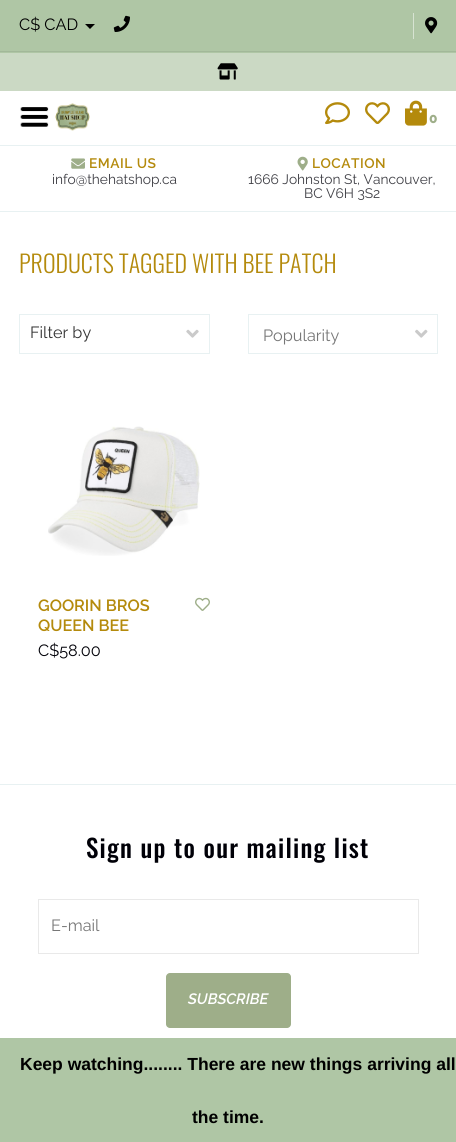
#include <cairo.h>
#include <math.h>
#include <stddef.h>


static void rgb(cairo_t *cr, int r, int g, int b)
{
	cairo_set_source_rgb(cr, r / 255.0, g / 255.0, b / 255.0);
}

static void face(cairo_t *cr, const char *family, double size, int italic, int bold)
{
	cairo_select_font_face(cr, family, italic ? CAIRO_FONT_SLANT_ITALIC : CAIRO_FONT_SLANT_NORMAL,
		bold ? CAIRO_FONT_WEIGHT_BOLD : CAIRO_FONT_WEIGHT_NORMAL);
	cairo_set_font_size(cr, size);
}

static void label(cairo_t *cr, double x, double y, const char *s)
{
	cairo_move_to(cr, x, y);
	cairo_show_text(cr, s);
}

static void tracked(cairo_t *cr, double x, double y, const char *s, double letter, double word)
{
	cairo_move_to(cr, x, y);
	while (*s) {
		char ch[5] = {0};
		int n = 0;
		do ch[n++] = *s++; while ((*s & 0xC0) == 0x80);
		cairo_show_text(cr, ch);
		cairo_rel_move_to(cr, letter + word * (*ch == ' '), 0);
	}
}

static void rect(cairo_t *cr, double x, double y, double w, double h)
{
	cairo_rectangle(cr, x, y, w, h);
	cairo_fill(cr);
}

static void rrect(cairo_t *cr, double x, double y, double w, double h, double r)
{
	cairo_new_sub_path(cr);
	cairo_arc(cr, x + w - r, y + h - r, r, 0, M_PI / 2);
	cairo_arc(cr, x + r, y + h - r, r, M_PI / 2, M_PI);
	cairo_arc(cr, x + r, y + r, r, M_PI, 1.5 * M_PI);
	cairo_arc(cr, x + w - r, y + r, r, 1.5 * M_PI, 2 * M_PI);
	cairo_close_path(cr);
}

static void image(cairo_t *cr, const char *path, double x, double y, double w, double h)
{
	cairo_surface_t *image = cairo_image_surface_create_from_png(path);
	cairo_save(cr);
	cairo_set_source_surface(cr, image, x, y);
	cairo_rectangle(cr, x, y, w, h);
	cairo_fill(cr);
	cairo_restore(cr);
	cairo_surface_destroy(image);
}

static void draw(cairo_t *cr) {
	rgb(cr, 255, 255, 255);
	cairo_paint(cr);
	rgb(cr, 175, 198, 165);
	rect(cr, 0, 0, 456, 53);
	rgb(cr, 162, 184, 153);
	rect(cr, 0, 51, 456, 1);
	face(cr, "Raleway", 16.25, 0, 0);
	rgb(cr, 0, 0, 0);
	label(cr, 19, 30, "C$ CAD");
	cairo_new_path(cr);
	cairo_move_to(cr, 85, 24);
	cairo_line_to(cr, 95, 24);
	cairo_line_to(cr, 90, 29);
	cairo_close_path(cr);
	cairo_fill(cr);
	image(cr, "image0.png", 113, 15, 17, 17);
	rgb(cr, 215, 227, 210);
	rect(cr, 413, 13, 1, 26);
	image(cr, "image1.png", 425, 17, 13, 17);
	rgb(cr, 203, 217, 196);
	rect(cr, 0, 53, 456, 38);
	image(cr, "image2.png", 217, 63, 21, 17);
	image(cr, "image3.png", 20, 107, 29, 20);
	image(cr, "image4.png", 55, 103, 35, 28);
	image(cr, "image5.png", 325, 102, 25, 23);
	image(cr, "image6.png", 365, 102, 25, 22);
	image(cr, "image7.png", 405, 100, 22, 26);
	face(cr, "Raleway ExtraBold", 13.75, 0, 0);
	rgb(cr, 158, 174, 137);
	label(cr, 429, 123, "0");
	rgb(cr, 232, 241, 242);
	rect(cr, 0, 145, 456, 1);
	rect(cr, 0, 211, 456, 1);
	image(cr, "image8.png", 71, 158, 14, 11);
	face(cr, "Raleway SemiBold", 13.75, 0, 0);
	rgb(cr, 180, 138, 12);
	tracked(cr, 89, 168, "EMAIL US", 0.5, 0);
	face(cr, "Raleway", 13.75, 0, 0);
	rgb(cr, 63, 63, 69);
	label(cr, 52, 184, "info@thehatshop.ca");
	image(cr, "image9.png", 297, 156, 11, 15);
	face(cr, "Raleway SemiBold", 13.75, 0, 0);
	rgb(cr, 180, 138, 12);
	tracked(cr, 312, 168, "LOCATION", 0.5, 0);
	face(cr, "Raleway", 13.75, 0, 0);
	rgb(cr, 63, 63, 69);
	label(cr, 248, 184, "1666 Johnston St, Vancouver,");
	label(cr, 304, 198, "BC V6H 3S2");
	face(cr, "Oswald Light", 24, 0, 0);
	rgb(cr, 180, 138, 12);
	label(cr, 19, 273, "PRODUCTS TAGGED WITH BEE PATCH");
	image(cr, "image10.png", 186, 329, 13, 9);
	cairo_rectangle(cr, 19.5, 314.5, 190, 39);
	rgb(cr, 232, 241, 242);
	cairo_set_line_width(cr, 1);
	cairo_stroke(cr);
	face(cr, "Raleway", 16.25, 0, 0);
	rgb(cr, 51, 51, 51);
	label(cr, 30, 338, "Filter by");
	image(cr, "image11.png", 415, 329, 13, 9);
	cairo_rectangle(cr, 248.5, 314.5, 189, 39);
	rgb(cr, 232, 241, 242);
	cairo_stroke(cr);
	rgb(cr, 119, 119, 119);
	label(cr, 263, 341, "Popularity");
	image(cr, "image12.png", 48, 426, 152, 130);
	face(cr, "Raleway SemiBold", 16.25, 0, 0);
	rgb(cr, 180, 138, 12);
	label(cr, 38, 611, "GOORIN BROS");
	label(cr, 38, 631, "QUEEN BEE");
	image(cr, "image13.png", 195, 597, 15, 14);
	face(cr, "Raleway", 16.25, 0, 0);
	rgb(cr, 0, 0, 7);
	label(cr, 38, 656, "C$58.00");
	rgb(cr, 232, 241, 242);
	rect(cr, 0, 784, 456, 1);
	face(cr, "Oswald Medium", 25, 0, 0);
	rgb(cr, 0, 0, 7);
	tracked(cr, 86, 858, "Sign up to our mailing list", 1.25, 0);
	cairo_rectangle(cr, 38.5, 899.5, 380, 54);
	rgb(cr, 233, 233, 233);
	cairo_stroke(cr);
	face(cr, "Raleway", 16.25, 0, 0);
	rgb(cr, 119, 119, 119);
	label(cr, 51, 931, "E-mail");
	rgb(cr, 158, 174, 137);
	rrect(cr, 166, 973, 125, 55, 4);
	cairo_fill(cr);
	face(cr, "Raleway SemiBold", 15, 1, 0);
	rgb(cr, 255, 255, 255);
	label(cr, 188, 1004, "SUBSCRIBE");
	rgb(cr, 175, 198, 165);
	rect(cr, 0, 1038, 456, 104);
	face(cr, "Liberation Sans", 17.5, 0, 1);
	rgb(cr, 0, 0, 0);
	label(cr, 20, 1070, "Keep watching........ There are new things arriving all");
	label(cr, 192, 1123, "the time.");
}

int main(void) {
	cairo_surface_t *surface = cairo_image_surface_create(CAIRO_FORMAT_RGB24, 456, 1142);
	cairo_t *cr = cairo_create(surface);
	cairo_font_options_t *options = cairo_font_options_create();
	cairo_font_options_set_hint_metrics(options, CAIRO_HINT_METRICS_OFF);
	cairo_font_options_set_hint_style(options, CAIRO_HINT_STYLE_NONE);
	cairo_set_font_options(cr, options);
	cairo_set_miter_limit(cr, 4);
	draw(cr);
	cairo_surface_write_to_png(surface, "render.png");
	cairo_font_options_destroy(options);
	cairo_destroy(cr);
	cairo_surface_destroy(surface);
	return 0;
}
